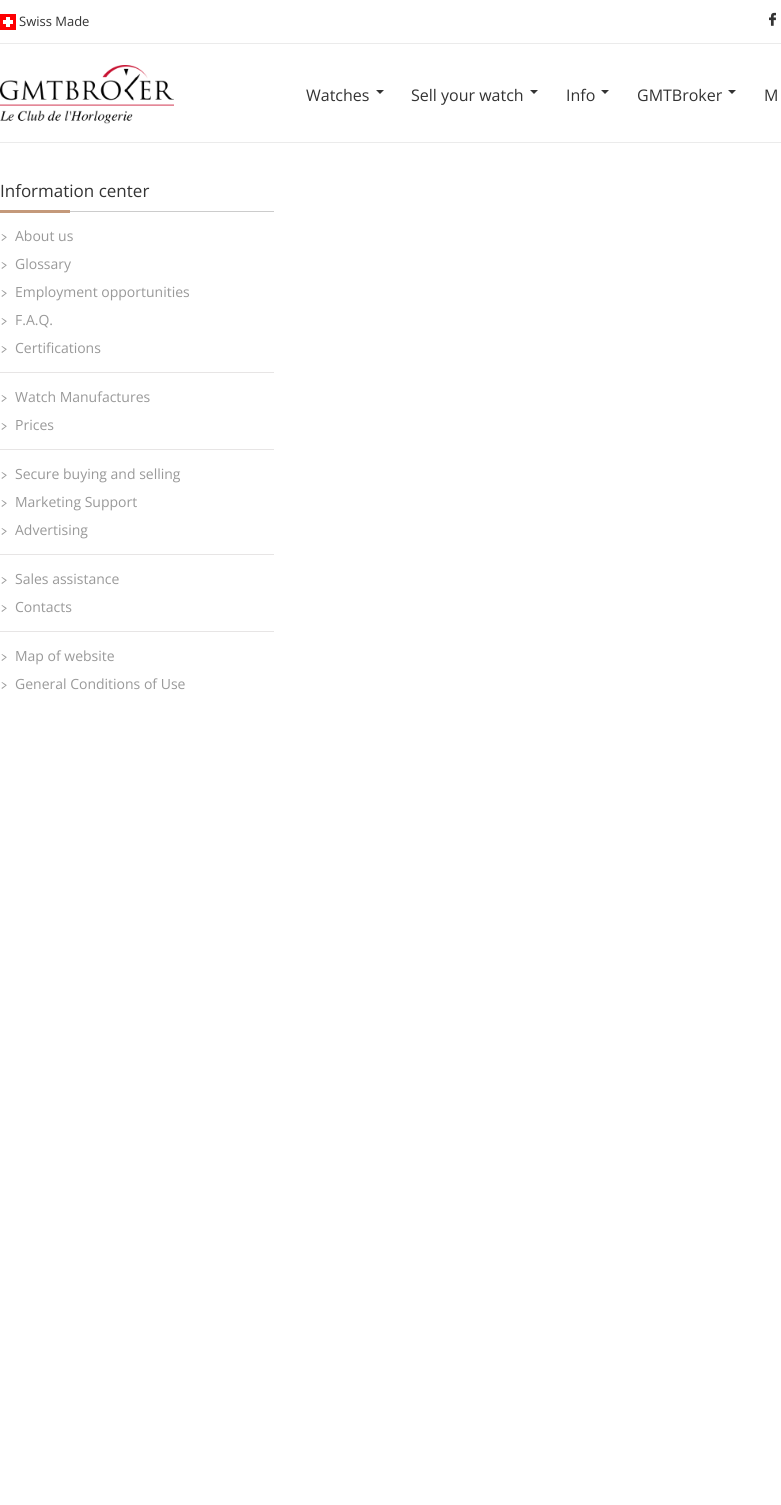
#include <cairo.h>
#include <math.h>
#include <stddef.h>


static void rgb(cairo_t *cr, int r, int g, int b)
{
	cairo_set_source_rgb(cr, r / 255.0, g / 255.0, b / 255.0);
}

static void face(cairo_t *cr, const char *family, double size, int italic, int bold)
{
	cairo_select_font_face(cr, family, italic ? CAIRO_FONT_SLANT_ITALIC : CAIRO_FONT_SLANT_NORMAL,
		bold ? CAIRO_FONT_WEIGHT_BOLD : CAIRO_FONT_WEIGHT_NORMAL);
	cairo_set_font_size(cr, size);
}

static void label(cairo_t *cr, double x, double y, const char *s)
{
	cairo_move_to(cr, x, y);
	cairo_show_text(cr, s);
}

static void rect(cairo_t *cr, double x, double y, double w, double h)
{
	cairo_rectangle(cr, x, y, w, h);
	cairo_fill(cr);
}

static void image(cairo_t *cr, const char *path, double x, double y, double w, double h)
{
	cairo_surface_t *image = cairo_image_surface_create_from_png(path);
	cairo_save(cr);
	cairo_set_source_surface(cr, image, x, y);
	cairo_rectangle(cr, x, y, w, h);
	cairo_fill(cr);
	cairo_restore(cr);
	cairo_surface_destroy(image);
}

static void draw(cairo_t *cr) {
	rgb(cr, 255, 255, 255);
	cairo_paint(cr);
	rgb(cr, 235, 235, 235);
	rect(cr, 0, 43, 781, 1);
	image(cr, "image0.png", 0, 14, 16, 16);
	face(cr, "Open Sans", 13, 0, 0);
	rgb(cr, 51, 51, 51);
	label(cr, 19, 26, "Swiss Made");
	image(cr, "image1.png", 769, 12, 7, 14);
	rgb(cr, 235, 235, 235);
	rect(cr, 0, 142, 781, 1);
	image(cr, "image2.png", 0, 65, 174, 59);
	face(cr, "Open Sans", 16, 0, 0);
	rgb(cr, 51, 51, 51);
	label(cr, 306, 101, "Watches");
	cairo_new_path(cr);
	cairo_move_to(cr, 376, 90);
	cairo_line_to(cr, 384, 90);
	cairo_line_to(cr, 380, 94);
	cairo_close_path(cr);
	cairo_fill(cr);
	label(cr, 411, 101, "Sell your watch");
	cairo_new_path(cr);
	cairo_move_to(cr, 530, 90);
	cairo_line_to(cr, 538, 90);
	cairo_line_to(cr, 534, 94);
	cairo_close_path(cr);
	cairo_fill(cr);
	label(cr, 566, 101, "Info");
	cairo_new_path(cr);
	cairo_move_to(cr, 601, 90);
	cairo_line_to(cr, 609, 90);
	cairo_line_to(cr, 605, 94);
	cairo_close_path(cr);
	cairo_fill(cr);
	label(cr, 637, 101, "GMTBroker");
	cairo_new_path(cr);
	cairo_move_to(cr, 728, 90);
	cairo_line_to(cr, 736, 90);
	cairo_line_to(cr, 732, 94);
	cairo_close_path(cr);
	cairo_fill(cr);
	label(cr, 764, 101, "M");
	rgb(cr, 204, 204, 204);
	rect(cr, 70, 211, 204, 1);
	face(cr, "Open Sans", 17, 0, 0);
	rgb(cr, 51, 51, 51);
	label(cr, 0, 197, "Information center");
	rgb(cr, 196, 153, 122);
	rect(cr, 0, 210, 70, 3);
	rgb(cr, 153, 153, 153);
	cairo_new_path(cr);
	cairo_move_to(cr, 2, 234);
	cairo_line_to(cr, 6.5, 237);
	cairo_line_to(cr, 6, 238);
	cairo_line_to(cr, 1.5, 234.5);
	cairo_close_path(cr);
	cairo_fill(cr);
	face(cr, "Open Sans", 14, 0, 0);
	label(cr, 15, 241, "About us");
	cairo_new_path(cr);
	cairo_move_to(cr, 1.5, 240);
	cairo_line_to(cr, 6, 237);
	cairo_line_to(cr, 6.5, 237.5);
	cairo_line_to(cr, 2, 241);
	cairo_close_path(cr);
	cairo_fill(cr);
	cairo_new_path(cr);
	cairo_move_to(cr, 2, 262);
	cairo_line_to(cr, 6.5, 265);
	cairo_line_to(cr, 6, 266);
	cairo_line_to(cr, 1.5, 262.5);
	cairo_close_path(cr);
	cairo_fill(cr);
	label(cr, 15, 269, "Glossary");
	cairo_new_path(cr);
	cairo_move_to(cr, 1.5, 268);
	cairo_line_to(cr, 6, 265);
	cairo_line_to(cr, 6.5, 265.5);
	cairo_line_to(cr, 2, 269);
	cairo_close_path(cr);
	cairo_fill(cr);
	cairo_new_path(cr);
	cairo_move_to(cr, 2, 290);
	cairo_line_to(cr, 6.5, 293);
	cairo_line_to(cr, 6, 294);
	cairo_line_to(cr, 1.5, 290.5);
	cairo_close_path(cr);
	cairo_fill(cr);
	label(cr, 15, 297, "Employment opportunities");
	cairo_new_path(cr);
	cairo_move_to(cr, 1.5, 296);
	cairo_line_to(cr, 6, 293);
	cairo_line_to(cr, 6.5, 293.5);
	cairo_line_to(cr, 2, 297);
	cairo_close_path(cr);
	cairo_fill(cr);
	cairo_new_path(cr);
	cairo_move_to(cr, 2, 318);
	cairo_line_to(cr, 6.5, 321);
	cairo_line_to(cr, 6, 322);
	cairo_line_to(cr, 1.5, 318.5);
	cairo_close_path(cr);
	cairo_fill(cr);
	label(cr, 15, 325, "F.A.Q.");
	cairo_new_path(cr);
	cairo_move_to(cr, 1.5, 324);
	cairo_line_to(cr, 6, 321);
	cairo_line_to(cr, 6.5, 321.5);
	cairo_line_to(cr, 2, 325);
	cairo_close_path(cr);
	cairo_fill(cr);
	cairo_new_path(cr);
	cairo_move_to(cr, 2, 346);
	cairo_line_to(cr, 6.5, 349);
	cairo_line_to(cr, 6, 350);
	cairo_line_to(cr, 1.5, 346.5);
	cairo_close_path(cr);
	cairo_fill(cr);
	label(cr, 15, 353, "Certifications");
	cairo_new_path(cr);
	cairo_move_to(cr, 1.5, 352);
	cairo_line_to(cr, 6, 349);
	cairo_line_to(cr, 6.5, 349.5);
	cairo_line_to(cr, 2, 353);
	cairo_close_path(cr);
	cairo_fill(cr);
	rgb(cr, 231, 229, 229);
	rect(cr, 0, 372, 274, 1);
	rgb(cr, 153, 153, 153);
	cairo_new_path(cr);
	cairo_move_to(cr, 2, 395);
	cairo_line_to(cr, 6.5, 398);
	cairo_line_to(cr, 6, 399);
	cairo_line_to(cr, 1.5, 395.5);
	cairo_close_path(cr);
	cairo_fill(cr);
	label(cr, 15, 402, "Watch Manufactures");
	cairo_new_path(cr);
	cairo_move_to(cr, 1.5, 401);
	cairo_line_to(cr, 6, 398);
	cairo_line_to(cr, 6.5, 398.5);
	cairo_line_to(cr, 2, 402);
	cairo_close_path(cr);
	cairo_fill(cr);
	cairo_new_path(cr);
	cairo_move_to(cr, 2, 423);
	cairo_line_to(cr, 6.5, 426);
	cairo_line_to(cr, 6, 427);
	cairo_line_to(cr, 1.5, 423.5);
	cairo_close_path(cr);
	cairo_fill(cr);
	label(cr, 15, 430, "Prices");
	cairo_new_path(cr);
	cairo_move_to(cr, 1.5, 429);
	cairo_line_to(cr, 6, 426);
	cairo_line_to(cr, 6.5, 426.5);
	cairo_line_to(cr, 2, 430);
	cairo_close_path(cr);
	cairo_fill(cr);
	rgb(cr, 231, 229, 229);
	rect(cr, 0, 449, 274, 1);
	rgb(cr, 153, 153, 153);
	cairo_new_path(cr);
	cairo_move_to(cr, 2, 472);
	cairo_line_to(cr, 6.5, 475);
	cairo_line_to(cr, 6, 476);
	cairo_line_to(cr, 1.5, 472.5);
	cairo_close_path(cr);
	cairo_fill(cr);
	label(cr, 15, 479, "Secure buying and selling");
	cairo_new_path(cr);
	cairo_move_to(cr, 1.5, 478);
	cairo_line_to(cr, 6, 475);
	cairo_line_to(cr, 6.5, 475.5);
	cairo_line_to(cr, 2, 479);
	cairo_close_path(cr);
	cairo_fill(cr);
	cairo_new_path(cr);
	cairo_move_to(cr, 2, 500);
	cairo_line_to(cr, 6.5, 503);
	cairo_line_to(cr, 6, 504);
	cairo_line_to(cr, 1.5, 500.5);
	cairo_close_path(cr);
	cairo_fill(cr);
	label(cr, 15, 507, "Marketing Support");
	cairo_new_path(cr);
	cairo_move_to(cr, 1.5, 506);
	cairo_line_to(cr, 6, 503);
	cairo_line_to(cr, 6.5, 503.5);
	cairo_line_to(cr, 2, 507);
	cairo_close_path(cr);
	cairo_fill(cr);
	cairo_new_path(cr);
	cairo_move_to(cr, 2, 528);
	cairo_line_to(cr, 6.5, 531);
	cairo_line_to(cr, 6, 532);
	cairo_line_to(cr, 1.5, 528.5);
	cairo_close_path(cr);
	cairo_fill(cr);
	label(cr, 15, 535, "Advertising");
	cairo_new_path(cr);
	cairo_move_to(cr, 1.5, 534);
	cairo_line_to(cr, 6, 531);
	cairo_line_to(cr, 6.5, 531.5);
	cairo_line_to(cr, 2, 535);
	cairo_close_path(cr);
	cairo_fill(cr);
	rgb(cr, 231, 229, 229);
	rect(cr, 0, 554, 274, 1);
	rgb(cr, 153, 153, 153);
	cairo_new_path(cr);
	cairo_move_to(cr, 2, 577);
	cairo_line_to(cr, 6.5, 580);
	cairo_line_to(cr, 6, 581);
	cairo_line_to(cr, 1.5, 577.5);
	cairo_close_path(cr);
	cairo_fill(cr);
	label(cr, 15, 584, "Sales assistance");
	cairo_new_path(cr);
	cairo_move_to(cr, 1.5, 583);
	cairo_line_to(cr, 6, 580);
	cairo_line_to(cr, 6.5, 580.5);
	cairo_line_to(cr, 2, 584);
	cairo_close_path(cr);
	cairo_fill(cr);
	cairo_new_path(cr);
	cairo_move_to(cr, 2, 605);
	cairo_line_to(cr, 6.5, 608);
	cairo_line_to(cr, 6, 609);
	cairo_line_to(cr, 1.5, 605.5);
	cairo_close_path(cr);
	cairo_fill(cr);
	label(cr, 15, 612, "Contacts");
	cairo_new_path(cr);
	cairo_move_to(cr, 1.5, 611);
	cairo_line_to(cr, 6, 608);
	cairo_line_to(cr, 6.5, 608.5);
	cairo_line_to(cr, 2, 612);
	cairo_close_path(cr);
	cairo_fill(cr);
	rgb(cr, 231, 229, 229);
	rect(cr, 0, 631, 274, 1);
	rgb(cr, 153, 153, 153);
	cairo_new_path(cr);
	cairo_move_to(cr, 2, 654);
	cairo_line_to(cr, 6.5, 657);
	cairo_line_to(cr, 6, 658);
	cairo_line_to(cr, 1.5, 654.5);
	cairo_close_path(cr);
	cairo_fill(cr);
	label(cr, 15, 661, "Map of website");
	cairo_new_path(cr);
	cairo_move_to(cr, 1.5, 660);
	cairo_line_to(cr, 6, 657);
	cairo_line_to(cr, 6.5, 657.5);
	cairo_line_to(cr, 2, 661);
	cairo_close_path(cr);
	cairo_fill(cr);
	cairo_new_path(cr);
	cairo_move_to(cr, 2, 682);
	cairo_line_to(cr, 6.5, 685);
	cairo_line_to(cr, 6, 686);
	cairo_line_to(cr, 1.5, 682.5);
	cairo_close_path(cr);
	cairo_fill(cr);
	label(cr, 15, 689, "General Conditions of Use");
	cairo_new_path(cr);
	cairo_move_to(cr, 1.5, 688);
	cairo_line_to(cr, 6, 685);
	cairo_line_to(cr, 6.5, 685.5);
	cairo_line_to(cr, 2, 689);
	cairo_close_path(cr);
	cairo_fill(cr);
}

int main(void) {
	cairo_surface_t *surface = cairo_image_surface_create(CAIRO_FORMAT_RGB24, 781, 1505);
	cairo_t *cr = cairo_create(surface);
	cairo_font_options_t *options = cairo_font_options_create();
	cairo_font_options_set_hint_metrics(options, CAIRO_HINT_METRICS_OFF);
	cairo_font_options_set_hint_style(options, CAIRO_HINT_STYLE_NONE);
	cairo_set_font_options(cr, options);
	cairo_set_miter_limit(cr, 4);
	draw(cr);
	cairo_surface_write_to_png(surface, "render.png");
	cairo_font_options_destroy(options);
	cairo_destroy(cr);
	cairo_surface_destroy(surface);
	return 0;
}
